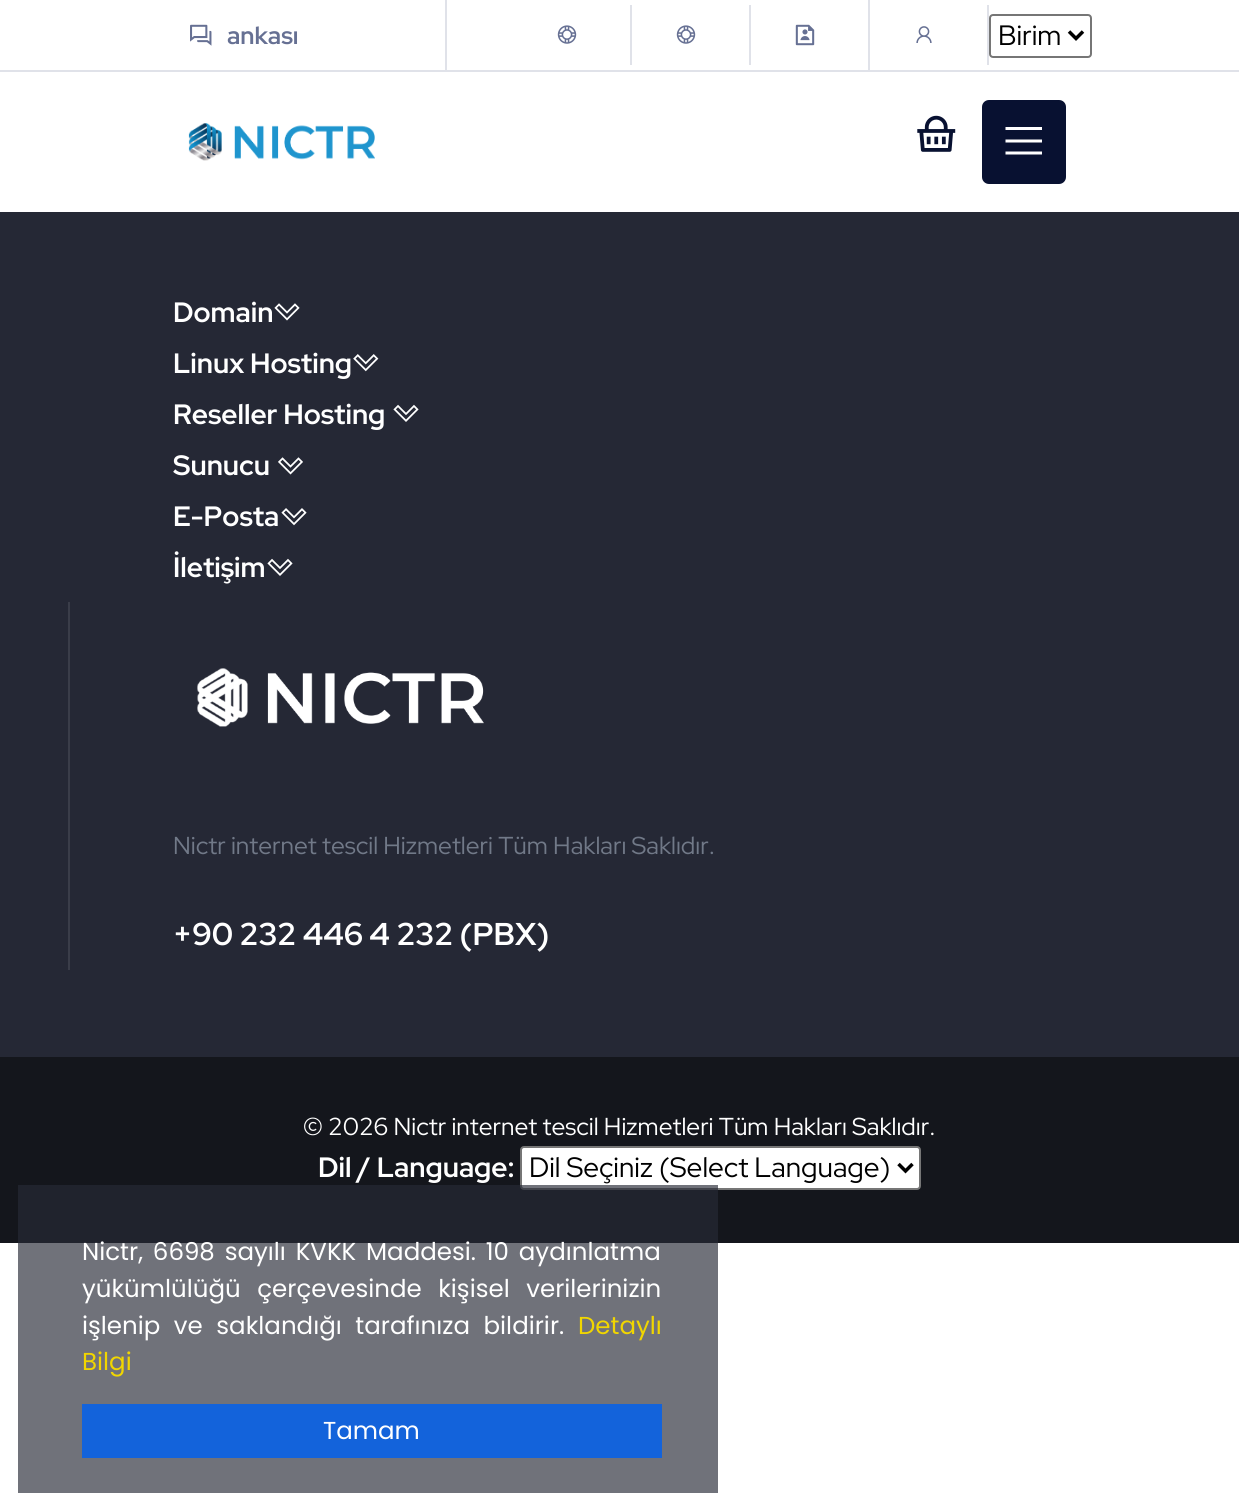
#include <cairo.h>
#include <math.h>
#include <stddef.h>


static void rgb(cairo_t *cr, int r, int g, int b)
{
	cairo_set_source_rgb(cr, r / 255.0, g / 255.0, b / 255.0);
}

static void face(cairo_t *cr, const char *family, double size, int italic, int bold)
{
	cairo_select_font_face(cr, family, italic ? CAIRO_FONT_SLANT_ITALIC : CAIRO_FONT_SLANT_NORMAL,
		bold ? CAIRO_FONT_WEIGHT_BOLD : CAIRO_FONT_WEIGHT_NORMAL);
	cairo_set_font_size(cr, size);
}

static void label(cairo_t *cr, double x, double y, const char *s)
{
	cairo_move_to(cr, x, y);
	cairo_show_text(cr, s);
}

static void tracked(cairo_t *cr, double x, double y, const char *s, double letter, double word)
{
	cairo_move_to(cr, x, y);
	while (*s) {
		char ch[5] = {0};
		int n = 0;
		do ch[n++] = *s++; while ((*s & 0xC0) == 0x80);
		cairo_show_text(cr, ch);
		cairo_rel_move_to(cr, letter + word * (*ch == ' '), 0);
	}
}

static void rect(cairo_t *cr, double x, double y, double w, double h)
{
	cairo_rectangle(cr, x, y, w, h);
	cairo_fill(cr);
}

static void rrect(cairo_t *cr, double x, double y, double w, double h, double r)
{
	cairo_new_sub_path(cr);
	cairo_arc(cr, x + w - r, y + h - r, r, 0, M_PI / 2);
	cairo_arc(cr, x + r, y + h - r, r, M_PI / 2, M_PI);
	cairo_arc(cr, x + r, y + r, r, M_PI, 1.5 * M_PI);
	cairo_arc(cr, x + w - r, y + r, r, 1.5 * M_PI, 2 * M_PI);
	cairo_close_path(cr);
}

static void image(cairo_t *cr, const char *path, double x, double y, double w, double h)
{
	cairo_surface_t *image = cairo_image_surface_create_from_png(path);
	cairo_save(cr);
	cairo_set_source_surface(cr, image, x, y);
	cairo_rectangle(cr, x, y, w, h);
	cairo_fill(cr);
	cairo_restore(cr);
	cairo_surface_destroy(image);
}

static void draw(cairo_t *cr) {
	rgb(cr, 255, 255, 255);
	cairo_paint(cr);
	rgb(cr, 224, 226, 233);
	rect(cr, 0, 70, 1239, 2);
	rect(cr, 445, 0, 2, 70);
	image(cr, "image0.png", 190, 24, 22, 22);
	face(cr, "Red Hat Display", 24.5, 0, 1);
	rgb(cr, 102, 112, 147);
	label(cr, 227, 44, "ankası");
	rgb(cr, 224, 226, 233);
	rect(cr, 630, 5, 2, 60);
	image(cr, "image1.png", 557, 25, 20, 19);
	rect(cr, 749, 5, 2, 60);
	image(cr, "image1.png", 676, 25, 20, 19);
	rect(cr, 868, 0, 2, 70);
	image(cr, "image2.png", 795, 24, 20, 22);
	rect(cr, 987, 5, 2, 60);
	image(cr, "image3.png", 916, 26, 16, 17);
	rrect(cr, 990, 15, 101, 42, 3);
	rgb(cr, 118, 118, 118);
	cairo_stroke(cr);
	cairo_new_path(cr);
	cairo_move_to(cr, 1069, 31.5);
	cairo_line_to(cr, 1076, 38.5);
	cairo_line_to(cr, 1083, 31.5);
	rgb(cr, 0, 0, 0);
	cairo_set_line_width(cr, 3.5);
	cairo_stroke(cr);
	face(cr, "Red Hat Display", 28, 0, 0);
	label(cr, 998, 45, "Birim");
	image(cr, "image4.png", 188, 123, 187, 38);
	image(cr, "image5.png", 917, 115, 39, 37);
	rgb(cr, 8, 17, 49);
	rrect(cr, 982, 100, 84, 84, 7);
	cairo_fill(cr);
	rgb(cr, 255, 255, 255);
	cairo_new_path(cr);
	cairo_move_to(cr, 1005.5, 127);
	cairo_line_to(cr, 1005.5, 130);
	cairo_line_to(cr, 1042, 130);
	cairo_line_to(cr, 1042, 127);
	cairo_close_path(cr);
	cairo_move_to(cr, 1005.5, 139.5);
	cairo_line_to(cr, 1005.5, 142.5);
	cairo_line_to(cr, 1042, 142.5);
	cairo_line_to(cr, 1042, 139.5);
	cairo_close_path(cr);
	cairo_move_to(cr, 1005.5, 151.5);
	cairo_line_to(cr, 1005.5, 154.5);
	cairo_line_to(cr, 1042, 154.5);
	cairo_line_to(cr, 1042, 151.5);
	cairo_close_path(cr);
	cairo_fill(cr);
	rgb(cr, 37, 40, 53);
	rect(cr, 0, 212, 1239, 845);
	face(cr, "Red Hat Display", 28, 0, 1);
	rgb(cr, 255, 255, 255);
	label(cr, 173, 322, "Domain");
	image(cr, "image6.png", 274, 303, 26, 18);
	label(cr, 173, 373, "Linux Hosting");
	image(cr, "image7.png", 353, 354, 26, 18);
	label(cr, 173, 424, "Reseller Hosting");
	image(cr, "image8.png", 393, 404, 26, 18);
	label(cr, 173, 475, "Sunucu");
	image(cr, "image9.png", 278, 457, 25, 18);
	label(cr, 173, 526, "E-Posta");
	image(cr, "image10.png", 281, 508, 26, 18);
	label(cr, 173, 577, "İletişim");
	image(cr, "image8.png", 267, 558, 26, 18);
	rgb(cr, 58, 61, 73);
	rect(cr, 68, 602, 2, 368);
	image(cr, "image11.png", 197, 668, 287, 59);
	face(cr, "Red Hat Display", 24.5, 0, 0);
	rgb(cr, 113, 121, 136);
	label(cr, 173, 854, "Nictr internet tescil Hizmetleri Tüm Hakları Saklıdır.");
	face(cr, "Red Hat Display", 31.5, 0, 1);
	rgb(cr, 255, 255, 255);
	label(cr, 173, 945, "+90 232 446 4 232 (PBX)");
	rgb(cr, 20, 22, 28);
	rect(cr, 0, 1057, 1239, 186);
	face(cr, "Red Hat Display", 24.5, 0, 0);
	rgb(cr, 255, 255, 255);
	label(cr, 303, 1135, "© 2026 Nictr internet tescil Hizmetleri Tüm Hakları Saklıdır.");
	face(cr, "Red Hat Display", 28, 0, 1);
	label(cr, 318, 1177, "Dil / Language:");
	rrect(cr, 521, 1147, 399, 42, 3);
	cairo_fill_preserve(cr);
	rgb(cr, 118, 118, 118);
	cairo_set_line_width(cr, 2);
	cairo_stroke(cr);
	cairo_new_path(cr);
	cairo_move_to(cr, 898.5, 1164);
	cairo_line_to(cr, 905.5, 1171);
	cairo_line_to(cr, 912.5, 1164);
	rgb(cr, 0, 0, 0);
	cairo_set_line_width(cr, 3.5);
	cairo_stroke(cr);
	face(cr, "Red Hat Display", 28, 0, 0);
	label(cr, 529, 1177, "Dil Seçiniz (Select Language)");
	cairo_set_source_rgba(cr, 0.153, 0.165, 0.212, 0.66);
	rect(cr, 18, 1185, 700, 308);
	face(cr, "Poppins", 24.5, 0, 0);
	rgb(cr, 255, 255, 255);
	tracked(cr, 82, 1260, "Nictr, 6698 sayılı KVKK Maddesi. 10 aydınlatma", 0, 3.25);
	tracked(cr, 82, 1297, "yükümlülüğü çerçevesinde kişisel verilerinizin", 0, 10);
	tracked(cr, 82, 1334, "işlenip ve saklandığı tarafınıza bildirir.", 0, 7);
	rgb(cr, 241, 214, 0);
	label(cr, 578, 1334, "Detaylı");
	label(cr, 82, 1370, "Bilgi");
	rgb(cr, 19, 99, 219);
	rect(cr, 82, 1404, 580, 54);
	rgb(cr, 255, 255, 255);
	label(cr, 323, 1439, "Tamam");
}

int main(void) {
	cairo_surface_t *surface = cairo_image_surface_create(CAIRO_FORMAT_RGB24, 1239, 1510);
	cairo_t *cr = cairo_create(surface);
	cairo_font_options_t *options = cairo_font_options_create();
	cairo_font_options_set_hint_metrics(options, CAIRO_HINT_METRICS_OFF);
	cairo_font_options_set_hint_style(options, CAIRO_HINT_STYLE_NONE);
	cairo_set_font_options(cr, options);
	cairo_set_miter_limit(cr, 4);
	draw(cr);
	cairo_surface_write_to_png(surface, "render.png");
	cairo_font_options_destroy(options);
	cairo_destroy(cr);
	cairo_surface_destroy(surface);
	return 0;
}
